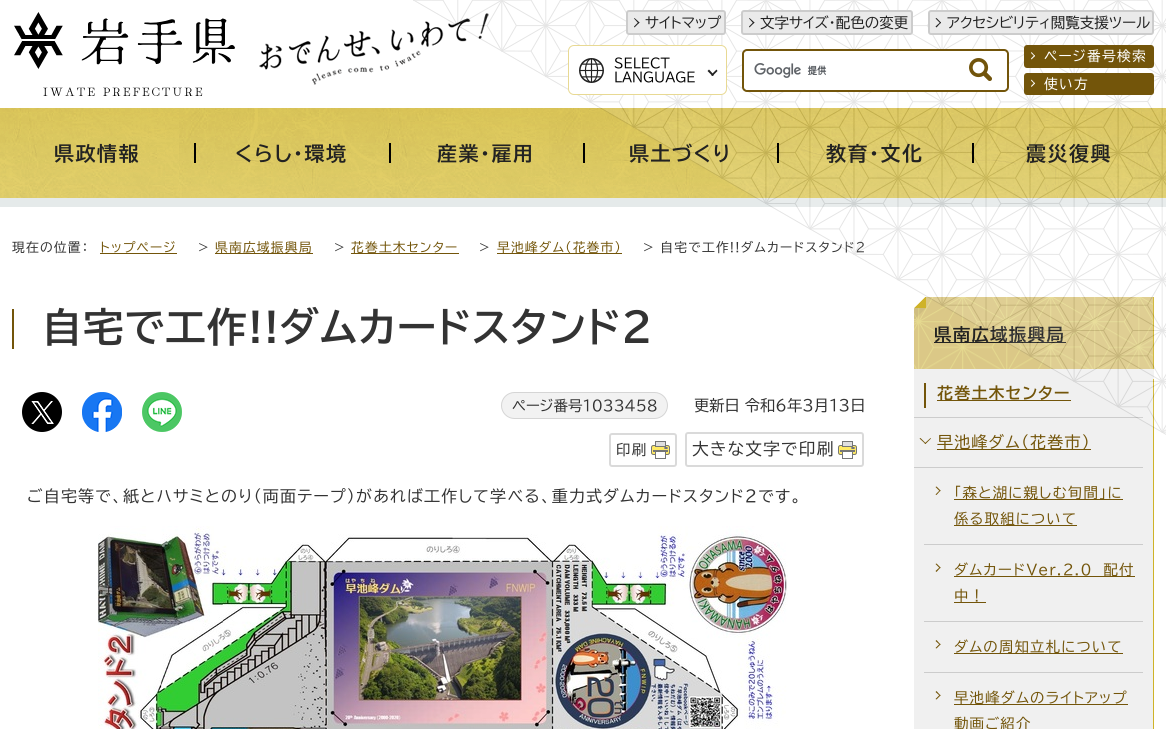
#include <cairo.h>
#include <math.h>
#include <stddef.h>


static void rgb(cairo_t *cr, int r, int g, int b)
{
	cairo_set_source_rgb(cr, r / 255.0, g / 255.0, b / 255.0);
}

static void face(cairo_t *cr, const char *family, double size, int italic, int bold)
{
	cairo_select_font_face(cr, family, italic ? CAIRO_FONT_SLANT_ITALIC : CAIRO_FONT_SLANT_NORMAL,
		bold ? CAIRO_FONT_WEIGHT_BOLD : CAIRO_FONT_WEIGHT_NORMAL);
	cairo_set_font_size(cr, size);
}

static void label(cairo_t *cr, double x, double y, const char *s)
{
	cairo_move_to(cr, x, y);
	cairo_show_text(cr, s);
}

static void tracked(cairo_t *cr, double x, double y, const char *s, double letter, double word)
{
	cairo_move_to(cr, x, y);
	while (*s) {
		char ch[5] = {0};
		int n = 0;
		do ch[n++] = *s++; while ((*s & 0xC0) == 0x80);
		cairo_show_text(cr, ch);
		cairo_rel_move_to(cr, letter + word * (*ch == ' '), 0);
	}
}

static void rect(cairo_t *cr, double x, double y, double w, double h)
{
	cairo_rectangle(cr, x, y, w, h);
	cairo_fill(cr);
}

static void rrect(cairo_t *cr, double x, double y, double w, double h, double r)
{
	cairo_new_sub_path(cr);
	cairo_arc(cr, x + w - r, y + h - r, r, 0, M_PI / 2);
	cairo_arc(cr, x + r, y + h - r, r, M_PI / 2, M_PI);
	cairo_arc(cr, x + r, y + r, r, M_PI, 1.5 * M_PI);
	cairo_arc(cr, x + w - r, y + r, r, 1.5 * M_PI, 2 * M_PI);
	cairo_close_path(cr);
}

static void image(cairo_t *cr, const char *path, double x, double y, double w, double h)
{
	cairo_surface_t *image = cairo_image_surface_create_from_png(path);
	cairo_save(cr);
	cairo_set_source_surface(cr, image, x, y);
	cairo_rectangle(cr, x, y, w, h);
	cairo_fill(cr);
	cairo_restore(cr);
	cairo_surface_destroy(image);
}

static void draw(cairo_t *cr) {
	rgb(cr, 255, 255, 255);
	cairo_paint(cr);
	image(cr, "image2.png", 259, 13, 230, 72);
	image(cr, "image6.png", 0, 108, 1166, 90);
	rgb(cr, 229, 234, 234);
	rect(cr, 0, 198, 1166, 9);
	rgb(cr, 115, 85, 10);
	rect(cr, 351, 253, 108, 1);
	face(cr, "BIZ UDPGothic", 12.75, 0, 0);
	tracked(cr, 351, 252, "花巻土木センター", 1.2, 0);
	rgb(cr, 51, 51, 51);
	tracked(cr, 479, 252, ">", 1.2, 0);
	rgb(cr, 115, 85, 10);
	rect(cr, 497, 253, 125, 1);
	tracked(cr, 497, 252, "早池峰ダム（花巻市）", 1.2, 0);
	rgb(cr, 51, 51, 51);
	tracked(cr, 643, 252, "> 自宅で工作!!ダムカードスタンド2", 1.2, 0);
	face(cr, "BIZ UDPGothic", 40, 0, 1);
	tracked(cr, 42, 342, "自宅で工作!!ダムカードスタンド2", 1.2, 0);
	rgb(cr, 242, 242, 242);
	rrect(cr, 501.5, 392.5, 166, 26, 13);
	cairo_fill_preserve(cr);
	rgb(cr, 213, 213, 213);
	cairo_set_line_width(cr, 1);
	cairo_stroke(cr);
	face(cr, "BIZ UDPGothic", 14.5, 0, 0);
	rgb(cr, 51, 51, 51);
	label(cr, 512, 411, "ページ番号1033458");
	face(cr, "BIZ UDPGothic", 15.25, 0, 0);
	label(cr, 694, 411, "更新日 令和6年3月13日");
	rrect(cr, 610, 434, 66, 32, 2);
	rgb(cr, 218, 218, 218);
	cairo_set_line_width(cr, 2);
	cairo_stroke(cr);
	rrect(cr, 686, 433, 177, 33, 2);
	cairo_stroke(cr);
	rgb(cr, 240, 240, 240);
	rect(cr, 914, 297, 239, 432);
	rgb(cr, 207, 179, 41);
	rect(cr, 1153, 297, 1, 432);
	image(cr, "image12.png", 914, 297, 239, 72);
	rgb(cr, 34, 34, 34);
	rect(cr, 934, 342, 132, 1);
	face(cr, "BIZ UDPGothic", 17.5, 0, 1);
	tracked(cr, 934, 341, "県南広域振興局", 1.2, 0);
	rgb(cr, 240, 240, 240);
	rect(cr, 1153, 369, 1, 10);
	rgb(cr, 204, 204, 204);
	rect(cr, 914, 417, 229, 1);
	rgb(cr, 115, 85, 10);
	rect(cr, 924, 383, 2, 25);
	rect(cr, 937, 400, 134, 1);
	face(cr, "BIZ UDPGothic", 16, 0, 1);
	tracked(cr, 937, 399, "花巻土木センター", 1.2, 0);
	rect(cr, 937, 449, 154, 1);
	face(cr, "BIZ UDPGothic", 16, 0, 0);
	tracked(cr, 937, 448, "早池峰ダム（花巻市）", 1.2, 0);
	image(cr, "image0.png", 413, 0, 753, 435);
	image(cr, "image1.png", 14, 12, 221, 84);
	rgb(cr, 234, 234, 234);
	rrect(cr, 627, 11, 98, 23, 2);
	cairo_fill_preserve(cr);
	rgb(cr, 204, 204, 204);
	cairo_stroke(cr);
	rgb(cr, 34, 34, 34);
	cairo_new_path(cr);
	cairo_move_to(cr, 639.5, 22.5);
	cairo_line_to(cr, 634.5, 27.5);
	cairo_line_to(cr, 634, 26.5);
	cairo_line_to(cr, 638.5, 22);
	cairo_close_path(cr);
	cairo_fill(cr);
	cairo_new_path(cr);
	cairo_move_to(cr, 639.5, 22.5);
	cairo_line_to(cr, 638.5, 23.5);
	cairo_line_to(cr, 634, 18.5);
	cairo_line_to(cr, 634.5, 18);
	cairo_close_path(cr);
	cairo_fill(cr);
	face(cr, "BIZ UDPGothic", 14.5, 0, 0);
	label(cr, 645, 28, "サイトマップ");
	rgb(cr, 234, 234, 234);
	rrect(cr, 742, 11, 170, 23, 2);
	cairo_fill_preserve(cr);
	rgb(cr, 204, 204, 204);
	cairo_stroke(cr);
	rgb(cr, 34, 34, 34);
	cairo_new_path(cr);
	cairo_move_to(cr, 754.5, 22.5);
	cairo_line_to(cr, 749.5, 27.5);
	cairo_line_to(cr, 749, 26.5);
	cairo_line_to(cr, 753.5, 22);
	cairo_close_path(cr);
	cairo_fill(cr);
	cairo_new_path(cr);
	cairo_move_to(cr, 754.5, 22.5);
	cairo_line_to(cr, 753.5, 23.5);
	cairo_line_to(cr, 749, 18.5);
	cairo_line_to(cr, 749.5, 18);
	cairo_close_path(cr);
	cairo_fill(cr);
	label(cr, 760, 28, "文字サイズ・配色の変更");
	rgb(cr, 234, 234, 234);
	rrect(cr, 929, 11, 224, 23, 2);
	cairo_fill_preserve(cr);
	rgb(cr, 204, 204, 204);
	cairo_stroke(cr);
	rgb(cr, 34, 34, 34);
	cairo_new_path(cr);
	cairo_move_to(cr, 941, 22.5);
	cairo_line_to(cr, 936.5, 27.5);
	cairo_line_to(cr, 935.5, 26.5);
	cairo_line_to(cr, 940.5, 22);
	cairo_close_path(cr);
	cairo_fill(cr);
	cairo_new_path(cr);
	cairo_move_to(cr, 941, 22.5);
	cairo_line_to(cr, 940.5, 23.5);
	cairo_line_to(cr, 935.5, 18.5);
	cairo_line_to(cr, 936.5, 18);
	cairo_close_path(cr);
	cairo_fill(cr);
	label(cr, 947, 28, "アクセシビリティ閲覧支援ツール");
	rgb(cr, 255, 255, 255);
	rrect(cr, 568, 45, 159, 50, 6);
	cairo_fill(cr);
	image(cr, "image3.png", 579, 58, 25, 25);
	rrect(cr, 568.5, 45.5, 158, 49, 5.5);
	rgb(cr, 232, 217, 147);
	cairo_set_line_width(cr, 1);
	cairo_stroke(cr);
	face(cr, "BIZ UDPGothic", 13.25, 0, 0);
	rgb(cr, 0, 0, 0);
	label(cr, 614, 68, "SELECT");
	label(cr, 614, 82, "LANGUAGE");
	rgb(cr, 34, 34, 34);
	cairo_new_path(cr);
	cairo_move_to(cr, 716.5, 69.5);
	cairo_line_to(cr, 717.5, 71);
	cairo_line_to(cr, 712.5, 76);
	cairo_line_to(cr, 711, 75);
	cairo_close_path(cr);
	cairo_fill(cr);
	cairo_new_path(cr);
	cairo_move_to(cr, 709, 69.5);
	cairo_line_to(cr, 714, 75);
	cairo_line_to(cr, 712.5, 76);
	cairo_line_to(cr, 707.5, 71);
	cairo_close_path(cr);
	cairo_fill(cr);
	rrect(cr, 743, 50, 265, 41, 4);
	rgb(cr, 115, 85, 10);
	cairo_set_line_width(cr, 2);
	cairo_stroke(cr);
	rgb(cr, 255, 255, 255);
	rrect(cr, 744, 51, 263, 39, 5);
	cairo_fill(cr);
	image(cr, "image4.png", 754, 63, 73, 15);
	rrect(cr, 744.5, 51.5, 262, 38, 4.5);
	cairo_set_line_width(cr, 1);
	cairo_stroke(cr);
	image(cr, "image5.png", 969, 58, 23, 23);
	rgb(cr, 115, 85, 10);
	rrect(cr, 1024, 45, 130, 23, 3);
	cairo_fill(cr);
	rgb(cr, 255, 255, 255);
	cairo_new_path(cr);
	cairo_move_to(cr, 1035, 56);
	cairo_line_to(cr, 1031.5, 59.5);
	cairo_line_to(cr, 1031, 58.5);
	cairo_line_to(cr, 1034.5, 55);
	cairo_close_path(cr);
	cairo_fill(cr);
	cairo_new_path(cr);
	cairo_move_to(cr, 1035, 56);
	cairo_line_to(cr, 1034.5, 56.5);
	cairo_line_to(cr, 1031, 53);
	cairo_line_to(cr, 1031.5, 52);
	cairo_close_path(cr);
	cairo_fill(cr);
	face(cr, "BIZ UDPGothic", 13.75, 0, 0);
	tracked(cr, 1044, 61, "ページ番号検索", 1.2, 0);
	rgb(cr, 115, 85, 10);
	rrect(cr, 1024, 73, 130, 22, 3);
	cairo_fill(cr);
	rgb(cr, 255, 255, 255);
	cairo_new_path(cr);
	cairo_move_to(cr, 1035, 83.5);
	cairo_line_to(cr, 1031.5, 87);
	cairo_line_to(cr, 1031, 86);
	cairo_line_to(cr, 1034.5, 82.5);
	cairo_close_path(cr);
	cairo_fill(cr);
	cairo_new_path(cr);
	cairo_move_to(cr, 1035, 83.5);
	cairo_line_to(cr, 1034.5, 84);
	cairo_line_to(cr, 1031, 80.5);
	cairo_line_to(cr, 1031.5, 79.5);
	cairo_close_path(cr);
	cairo_fill(cr);
	tracked(cr, 1044, 89, "使い方", 1.2, 0);
	face(cr, "BIZ UDPGothic", 20, 0, 1);
	rgb(cr, 34, 34, 34);
	tracked(cr, 54, 161, "県政情報", 1.5, 0);
	rgb(cr, 0, 0, 0);
	rect(cr, 194, 143, 2, 20);
	rgb(cr, 34, 34, 34);
	tracked(cr, 235, 161, "くらし・環境", 1.5, 0);
	rgb(cr, 0, 0, 0);
	rect(cr, 389, 143, 2, 20);
	rgb(cr, 34, 34, 34);
	tracked(cr, 437, 161, "産業・雇用", 1.5, 0);
	rgb(cr, 0, 0, 0);
	rect(cr, 583, 143, 2, 20);
	rgb(cr, 34, 34, 34);
	tracked(cr, 629, 161, "県土づくり", 1.5, 0);
	rgb(cr, 0, 0, 0);
	rect(cr, 777, 143, 2, 20);
	rgb(cr, 34, 34, 34);
	tracked(cr, 826, 161, "教育・文化", 1.5, 0);
	rgb(cr, 0, 0, 0);
	rect(cr, 972, 143, 2, 20);
	rgb(cr, 34, 34, 34);
	tracked(cr, 1026, 161, "震災復興", 1.5, 0);
	face(cr, "BIZ UDPGothic", 12.75, 0, 0);
	rgb(cr, 51, 51, 51);
	tracked(cr, 12, 252, "現在の位置：", 1.2, 0);
	rgb(cr, 115, 85, 10);
	tracked(cr, 100, 252, "トップページ", 1.2, 0);
	rect(cr, 100, 253, 77, 1);
	rgb(cr, 51, 51, 51);
	tracked(cr, 198, 252, ">", 1.2, 0);
	rgb(cr, 115, 85, 10);
	rect(cr, 215, 253, 98, 1);
	tracked(cr, 215, 252, "県南広域振興局", 1.2, 0);
	rgb(cr, 51, 51, 51);
	tracked(cr, 334, 252, ">", 1.2, 0);
	rgb(cr, 115, 85, 10);
	rect(cr, 12, 309, 2, 40);
	image(cr, "image7.png", 22, 392, 40, 40);
	image(cr, "image8.png", 82, 392, 40, 40);
	image(cr, "image9.png", 142, 392, 40, 40);
	image(cr, "image10.png", 651, 441, 19, 18);
	face(cr, "BIZ UDPGothic", 14.5, 0, 0);
	rgb(cr, 51, 51, 51);
	tracked(cr, 616, 455, "印刷", 1.2, 0);
	image(cr, "image10.png", 838, 441, 19, 18);
	face(cr, "BIZ UDPGothic", 16.75, 0, 0);
	tracked(cr, 692, 455, "大きな文字で印刷", 1.2, 0);
	face(cr, "BIZ UDPGothic", 16, 0, 0);
	tracked(cr, 27, 502, "ご自宅等で、紙とハサミとのり（両面テープ）があれば工作して学べる、重力式ダムカードスタンド2です。", 1.2, 0);
	image(cr, "image11.png", 98, 526, 690, 203);
	rgb(cr, 204, 204, 204);
	rect(cr, 914, 467, 229, 1);
	rgb(cr, 115, 85, 10);
	cairo_new_path(cr);
	cairo_move_to(cr, 931, 438.5);
	cairo_line_to(cr, 925.5, 444);
	cairo_line_to(cr, 924.5, 443.5);
	cairo_line_to(cr, 930.5, 438);
	cairo_close_path(cr);
	cairo_fill(cr);
	cairo_new_path(cr);
	cairo_move_to(cr, 926, 443.5);
	cairo_line_to(cr, 925.5, 444);
	cairo_line_to(cr, 919.5, 438.5);
	cairo_line_to(cr, 920.5, 438);
	cairo_close_path(cr);
	cairo_fill(cr);
	rgb(cr, 204, 204, 204);
	rect(cr, 924, 544, 219, 1);
	rgb(cr, 115, 85, 10);
	cairo_new_path(cr);
	cairo_move_to(cr, 936.5, 486.5);
	cairo_line_to(cr, 940.5, 490.5);
	cairo_line_to(cr, 940, 491.5);
	cairo_line_to(cr, 935.5, 487);
	cairo_close_path(cr);
	cairo_fill(cr);
	cairo_new_path(cr);
	cairo_move_to(cr, 940, 490);
	cairo_line_to(cr, 940.5, 490.5);
	cairo_line_to(cr, 936.5, 495);
	cairo_line_to(cr, 935.5, 494.5);
	cairo_close_path(cr);
	cairo_fill(cr);
	rect(cr, 954, 499, 169, 1);
	face(cr, "BIZ UDPGothic", 14.4, 0, 0);
	tracked(cr, 954, 498, "「森と湖に親しむ旬間」に", 1.2, 0);
	rect(cr, 954, 525, 123, 1);
	tracked(cr, 954, 524, "係る取組について", 1.2, 0);
	rgb(cr, 204, 204, 204);
	rect(cr, 924, 621, 219, 1);
	rgb(cr, 115, 85, 10);
	cairo_new_path(cr);
	cairo_move_to(cr, 936.5, 563.5);
	cairo_line_to(cr, 940.5, 567.5);
	cairo_line_to(cr, 940, 568.5);
	cairo_line_to(cr, 935.5, 564);
	cairo_close_path(cr);
	cairo_fill(cr);
	cairo_new_path(cr);
	cairo_move_to(cr, 940, 567);
	cairo_line_to(cr, 940.5, 567.5);
	cairo_line_to(cr, 936.5, 572);
	cairo_line_to(cr, 935.5, 571);
	cairo_close_path(cr);
	cairo_fill(cr);
	rect(cr, 954, 576, 181, 1);
	tracked(cr, 954, 575, "ダムカードVer.2.0　配付", 1.2, 0);
	rect(cr, 954, 602, 32, 1);
	tracked(cr, 954, 601, "中！", 1.2, 0);
	rgb(cr, 204, 204, 204);
	rect(cr, 924, 672, 219, 1);
	rgb(cr, 115, 85, 10);
	cairo_new_path(cr);
	cairo_move_to(cr, 936.5, 640);
	cairo_line_to(cr, 940.5, 644.5);
	cairo_line_to(cr, 940, 645);
	cairo_line_to(cr, 935.5, 641);
	cairo_close_path(cr);
	cairo_fill(cr);
	cairo_new_path(cr);
	cairo_move_to(cr, 940, 643.5);
	cairo_line_to(cr, 940.5, 644.5);
	cairo_line_to(cr, 936.5, 648.5);
	cairo_line_to(cr, 935.5, 648);
	cairo_close_path(cr);
	cairo_fill(cr);
	rect(cr, 954, 653, 169, 1);
	tracked(cr, 954, 652, "ダムの周知立札について", 1.2, 0);
	cairo_new_path(cr);
	cairo_move_to(cr, 936.5, 691);
	cairo_line_to(cr, 940.5, 695.5);
	cairo_line_to(cr, 940, 696);
	cairo_line_to(cr, 935.5, 692);
	cairo_close_path(cr);
	cairo_fill(cr);
	cairo_new_path(cr);
	cairo_move_to(cr, 940, 694.5);
	cairo_line_to(cr, 940.5, 695.5);
	cairo_line_to(cr, 936.5, 699.5);
	cairo_line_to(cr, 935.5, 699);
	cairo_close_path(cr);
	cairo_fill(cr);
	rect(cr, 954, 704, 174, 1);
	tracked(cr, 954, 703, "早池峰ダムのライトアップ", 1.2, 0);
	tracked(cr, 954, 729, "動画ご紹介", 1.2, 0);
}

int main(void) {
	cairo_surface_t *surface = cairo_image_surface_create(CAIRO_FORMAT_RGB24, 1166, 729);
	cairo_t *cr = cairo_create(surface);
	cairo_font_options_t *options = cairo_font_options_create();
	cairo_font_options_set_hint_metrics(options, CAIRO_HINT_METRICS_OFF);
	cairo_font_options_set_hint_style(options, CAIRO_HINT_STYLE_NONE);
	cairo_set_font_options(cr, options);
	cairo_set_miter_limit(cr, 4);
	draw(cr);
	cairo_surface_write_to_png(surface, "render.png");
	cairo_font_options_destroy(options);
	cairo_destroy(cr);
	cairo_surface_destroy(surface);
	return 0;
}
